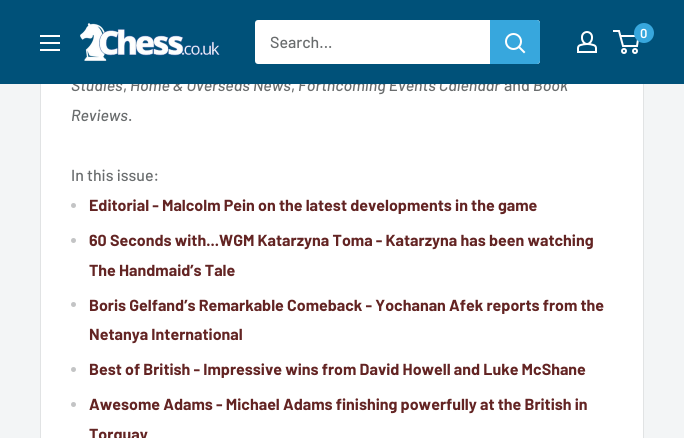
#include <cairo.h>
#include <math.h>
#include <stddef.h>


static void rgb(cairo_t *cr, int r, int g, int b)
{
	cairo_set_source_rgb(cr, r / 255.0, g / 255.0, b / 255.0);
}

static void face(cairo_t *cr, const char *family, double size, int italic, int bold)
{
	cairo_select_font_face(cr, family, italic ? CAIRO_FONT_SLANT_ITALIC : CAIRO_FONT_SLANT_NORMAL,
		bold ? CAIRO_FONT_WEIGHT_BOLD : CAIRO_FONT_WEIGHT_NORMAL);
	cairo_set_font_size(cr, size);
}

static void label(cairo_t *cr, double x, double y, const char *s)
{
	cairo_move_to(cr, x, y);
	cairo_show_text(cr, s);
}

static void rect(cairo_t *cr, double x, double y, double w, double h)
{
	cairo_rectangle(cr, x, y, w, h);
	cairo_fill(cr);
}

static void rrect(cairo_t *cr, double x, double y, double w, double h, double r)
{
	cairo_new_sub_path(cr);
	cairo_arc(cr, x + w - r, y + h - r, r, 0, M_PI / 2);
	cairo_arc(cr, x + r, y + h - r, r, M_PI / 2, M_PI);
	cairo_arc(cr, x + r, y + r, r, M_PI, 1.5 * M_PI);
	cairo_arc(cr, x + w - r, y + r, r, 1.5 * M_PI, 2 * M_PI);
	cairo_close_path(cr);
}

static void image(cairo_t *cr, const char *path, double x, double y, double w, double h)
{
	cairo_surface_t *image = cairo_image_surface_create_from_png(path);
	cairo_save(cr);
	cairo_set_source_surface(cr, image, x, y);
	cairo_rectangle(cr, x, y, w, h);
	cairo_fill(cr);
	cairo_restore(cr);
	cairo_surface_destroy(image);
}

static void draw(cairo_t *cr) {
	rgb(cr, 243, 245, 246);
	cairo_paint(cr);
	rgb(cr, 255, 255, 255);
	rect(cr, 41, 84, 602, 354);
	cairo_rectangle(cr, 40.5, -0.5, 603, 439);
	rgb(cr, 225, 227, 228);
	cairo_set_line_width(cr, 1);
	cairo_stroke(cr);
	face(cr, "Barlow Medium", 16, 1, 0);
	rgb(cr, 105, 108, 109);
	label(cr, 71, 91, "Studies");
	label(cr, 130, 91, "Home & Overseas News");
	label(cr, 298, 91, "Forthcoming Events Calendar");
	face(cr, "Barlow Medium", 16, 0, 0);
	label(cr, 504, 91, "and");
	face(cr, "Barlow Medium", 16, 1, 0);
	label(cr, 533, 91, "Book");
	rgb(cr, 0, 81, 121);
	rect(cr, 0, 0, 684, 84);
	image(cr, "image0.png", 80, 23, 140, 38);
	image(cr, "image1.png", 577, 31, 20, 22);
	cairo_arc(cr, 624, 51, 2, 0, 2 * M_PI);
	rgb(cr, 255, 255, 255);
	cairo_set_line_width(cr, 2);
	cairo_stroke(cr);
	cairo_arc(cr, 635, 51, 2, 0, 2 * M_PI);
	cairo_stroke(cr);
	cairo_new_path(cr);
	cairo_move_to(cr, 620.5, 36);
	cairo_line_to(cr, 638.5, 36);
	cairo_line_to(cr, 637, 46);
	cairo_line_to(cr, 623, 46);
	cairo_line_to(cr, 619, 31);
	cairo_line_to(cr, 613, 31);
	cairo_stroke(cr);
	rgb(cr, 55, 167, 221);
	cairo_arc(cr, 644, 33, 10, 0, 2 * M_PI);
	cairo_fill(cr);
	face(cr, "Barlow SemiBold", 13, 0, 0);
	rgb(cr, 255, 255, 255);
	label(cr, 640, 38, "0");
	image(cr, "image2.png", 40, 35, 20, 16);
	rrect(cr, 255, 20, 285, 44, 3);
	cairo_fill(cr);
	face(cr, "Barlow Medium", 16, 0, 0);
	rgb(cr, 105, 108, 109);
	label(cr, 270, 48, "Search...");
	rgb(cr, 55, 167, 221);
	cairo_new_path(cr);
	cairo_move_to(cr, 490, 20);
	cairo_line_to(cr, 537, 20);
	cairo_curve_to(cr, 538.5, 20, 540, 21.5, 540, 23);
	cairo_line_to(cr, 540, 61);
	cairo_curve_to(cr, 540, 62.5, 538.5, 64, 537, 64);
	cairo_line_to(cr, 490, 64);
	cairo_close_path(cr);
	cairo_fill(cr);
	cairo_new_path(cr);
	cairo_move_to(cr, 524, 52);
	cairo_line_to(cr, 519, 47);
	rgb(cr, 255, 255, 255);
	cairo_set_line_cap(cr, CAIRO_LINE_CAP_SQUARE);
	cairo_stroke(cr);
	cairo_arc(cr, 513.5, 41.5, 7.5, 0, 2 * M_PI);
	cairo_set_line_cap(cr, CAIRO_LINE_CAP_BUTT);
	cairo_stroke(cr);
	rgb(cr, 105, 108, 109);
	label(cr, 123, 91, ",");
	label(cr, 291, 91, ",");
	face(cr, "Barlow Medium", 16, 1, 0);
	label(cr, 71, 121, "Reviews");
	face(cr, "Barlow Medium", 16, 0, 0);
	label(cr, 128, 121, ".");
	label(cr, 71, 181, "In this issue:");
	rgb(cr, 195, 196, 197);
	cairo_new_path(cr);
	cairo_arc(cr, 73.5, 205.5, 2.5, 0, 2 * M_PI);
	cairo_fill(cr);
	face(cr, "Barlow", 16, 0, 1);
	rgb(cr, 99, 36, 35);
	label(cr, 89, 211, "Editorial - Malcolm Pein on the latest developments in the game");
	rgb(cr, 195, 196, 197);
	cairo_new_path(cr);
	cairo_arc(cr, 73.5, 240.5, 2.5, 0, 2 * M_PI);
	cairo_fill(cr);
	rgb(cr, 99, 36, 35);
	label(cr, 89, 246, "60 Seconds with...WGM Katarzyna Toma - Katarzyna has been watching");
	label(cr, 89, 276, "The Handmaid’s Tale");
	rgb(cr, 195, 196, 197);
	cairo_new_path(cr);
	cairo_arc(cr, 73.5, 304.5, 2.5, 0, 2 * M_PI);
	cairo_fill(cr);
	rgb(cr, 99, 36, 35);
	label(cr, 89, 311, "Boris Gelfand’s Remarkable Comeback - Yochanan Afek reports from the");
	label(cr, 89, 340, "Netanya International");
	rgb(cr, 195, 196, 197);
	cairo_new_path(cr);
	cairo_arc(cr, 73.5, 369.5, 2.5, 0, 2 * M_PI);
	cairo_fill(cr);
	rgb(cr, 99, 36, 35);
	label(cr, 89, 375, "Best of British - Impressive wins from David Howell and Luke McShane");
	rgb(cr, 195, 196, 197);
	cairo_new_path(cr);
	cairo_arc(cr, 73.5, 404.5, 2.5, 0, 2 * M_PI);
	cairo_fill(cr);
	rgb(cr, 99, 36, 35);
	label(cr, 89, 410, "Awesome Adams - Michael Adams finishing powerfully at the British in");
	label(cr, 89, 440, "Torquay");
}

int main(void) {
	cairo_surface_t *surface = cairo_image_surface_create(CAIRO_FORMAT_RGB24, 684, 438);
	cairo_t *cr = cairo_create(surface);
	cairo_font_options_t *options = cairo_font_options_create();
	cairo_font_options_set_hint_metrics(options, CAIRO_HINT_METRICS_OFF);
	cairo_font_options_set_hint_style(options, CAIRO_HINT_STYLE_NONE);
	cairo_set_font_options(cr, options);
	cairo_set_miter_limit(cr, 4);
	draw(cr);
	cairo_surface_write_to_png(surface, "render.png");
	cairo_font_options_destroy(options);
	cairo_destroy(cr);
	cairo_surface_destroy(surface);
	return 0;
}
